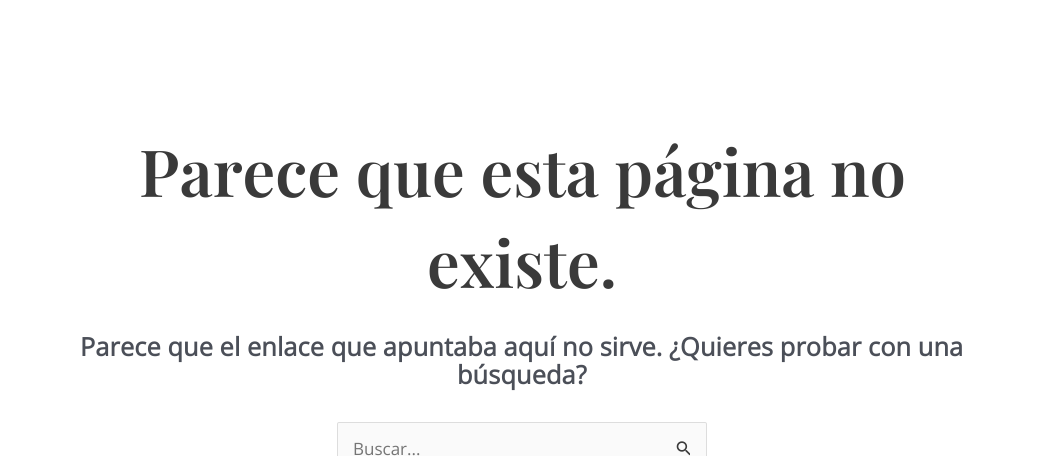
#include <cairo.h>
#include <math.h>
#include <stddef.h>


static void rgb(cairo_t *cr, int r, int g, int b)
{
	cairo_set_source_rgb(cr, r / 255.0, g / 255.0, b / 255.0);
}

static void face(cairo_t *cr, const char *family, double size, int italic, int bold)
{
	cairo_select_font_face(cr, family, italic ? CAIRO_FONT_SLANT_ITALIC : CAIRO_FONT_SLANT_NORMAL,
		bold ? CAIRO_FONT_WEIGHT_BOLD : CAIRO_FONT_WEIGHT_NORMAL);
	cairo_set_font_size(cr, size);
}

static void label(cairo_t *cr, double x, double y, const char *s)
{
	cairo_move_to(cr, x, y);
	cairo_show_text(cr, s);
}

static void rrect(cairo_t *cr, double x, double y, double w, double h, double r)
{
	cairo_new_sub_path(cr);
	cairo_arc(cr, x + w - r, y + h - r, r, 0, M_PI / 2);
	cairo_arc(cr, x + r, y + h - r, r, M_PI / 2, M_PI);
	cairo_arc(cr, x + r, y + r, r, M_PI, 1.5 * M_PI);
	cairo_arc(cr, x + w - r, y + r, r, 1.5 * M_PI, 2 * M_PI);
	cairo_close_path(cr);
}

static void image(cairo_t *cr, const char *path, double x, double y, double w, double h)
{
	cairo_surface_t *image = cairo_image_surface_create_from_png(path);
	cairo_save(cr);
	cairo_set_source_surface(cr, image, x, y);
	cairo_rectangle(cr, x, y, w, h);
	cairo_fill(cr);
	cairo_restore(cr);
	cairo_surface_destroy(image);
}

static void draw(cairo_t *cr) {
	rgb(cr, 255, 255, 255);
	cairo_paint(cr);
	face(cr, "Playfair Display SemiBold", 65, 0, 0);
	rgb(cr, 58, 58, 58);
	label(cr, 139, 197, "Parece que esta página no");
	label(cr, 427, 288, "existe.");
	face(cr, "Open Sans", 25.5, 0, 1);
	rgb(cr, 75, 79, 88);
	label(cr, 80, 356, "Parece que el enlace que apuntaba aquí no sirve. ¿Quieres probar con una");
	label(cr, 457, 384, "búsqueda?");
	rgb(cr, 250, 250, 250);
	rrect(cr, 337.5, 422.5, 369, 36, 1.5);
	cairo_fill_preserve(cr);
	rgb(cr, 221, 221, 221);
	cairo_set_line_width(cr, 1);
	cairo_stroke(cr);
	face(cr, "Open Sans", 17, 0, 0);
	rgb(cr, 117, 117, 117);
	label(cr, 353, 455, "Buscar...");
	image(cr, "image0.png", 676, 441, 14, 15);
}

int main(void) {
	cairo_surface_t *surface = cairo_image_surface_create(CAIRO_FORMAT_RGB24, 1044, 456);
	cairo_t *cr = cairo_create(surface);
	cairo_font_options_t *options = cairo_font_options_create();
	cairo_font_options_set_hint_metrics(options, CAIRO_HINT_METRICS_OFF);
	cairo_font_options_set_hint_style(options, CAIRO_HINT_STYLE_NONE);
	cairo_set_font_options(cr, options);
	cairo_set_miter_limit(cr, 4);
	draw(cr);
	cairo_surface_write_to_png(surface, "render.png");
	cairo_font_options_destroy(options);
	cairo_destroy(cr);
	cairo_surface_destroy(surface);
	return 0;
}
